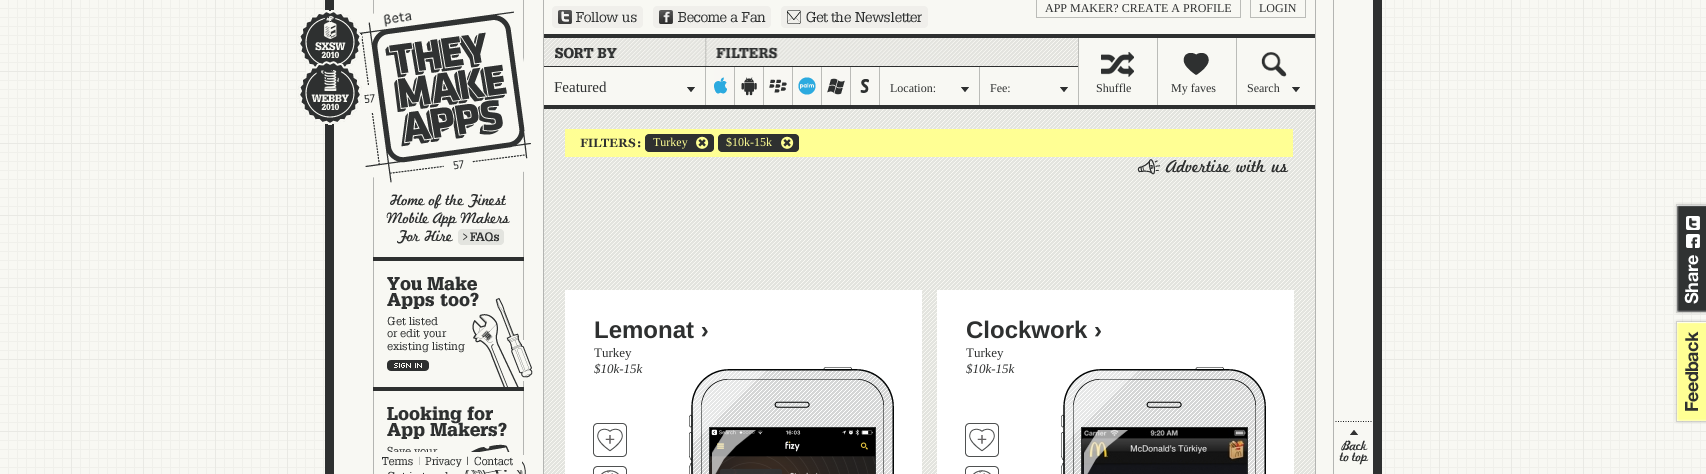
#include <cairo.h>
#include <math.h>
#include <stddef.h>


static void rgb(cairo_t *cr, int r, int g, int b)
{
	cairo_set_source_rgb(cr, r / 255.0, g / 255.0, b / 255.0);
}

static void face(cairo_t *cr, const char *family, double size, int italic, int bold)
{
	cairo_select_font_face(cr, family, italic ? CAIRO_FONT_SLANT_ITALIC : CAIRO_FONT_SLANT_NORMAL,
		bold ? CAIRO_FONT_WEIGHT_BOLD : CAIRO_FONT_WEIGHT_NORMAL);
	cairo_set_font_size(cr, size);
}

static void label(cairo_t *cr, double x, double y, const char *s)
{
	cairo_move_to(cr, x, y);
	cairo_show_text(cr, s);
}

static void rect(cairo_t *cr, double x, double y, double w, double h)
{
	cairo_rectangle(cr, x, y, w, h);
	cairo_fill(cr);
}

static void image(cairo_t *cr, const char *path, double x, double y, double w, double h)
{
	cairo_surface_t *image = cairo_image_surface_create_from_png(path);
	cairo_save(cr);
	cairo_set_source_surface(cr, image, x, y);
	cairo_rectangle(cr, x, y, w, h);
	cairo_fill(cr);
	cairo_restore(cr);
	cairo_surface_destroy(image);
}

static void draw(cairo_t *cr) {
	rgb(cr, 255, 255, 255);
	cairo_paint(cr);
	image(cr, "image0.png", 0, 0, 1706, 474);
	image(cr, "image1.png", 334, 0, 1039, 474);
	rgb(cr, 46, 48, 48);
	rect(cr, 1373, 0, 9, 474);
	rect(cr, 325, 0, 9, 474);
	image(cr, "image3.png", 355, 11, 176, 172);
	image(cr, "image2.png", 298, 10, 64, 115);
	image(cr, "image4.png", 552, 6, 91, 22);
	image(cr, "image5.png", 653, 6, 118, 22);
	image(cr, "image6.png", 781, 6, 147, 22);
	rgb(cr, 187, 188, 184);
	rect(cr, 1240, 0, 1, 18);
	rect(cr, 1036, 17, 205, 1);
	rect(cr, 1036, 0, 1, 18);
	face(cr, "Liberation Serif", 12, 0, 0);
	rgb(cr, 46, 48, 48);
	label(cr, 1045, 12, "APP MAKER? CREATE A PROFILE");
	rgb(cr, 187, 188, 184);
	rect(cr, 1305, 0, 1, 18);
	rect(cr, 1250, 17, 56, 1);
	rect(cr, 1250, 0, 1, 18);
	rgb(cr, 46, 48, 48);
	label(cr, 1259, 12, "LOGIN");
	image(cr, "image7.png", 544, 38, 534, 29);
	rect(cr, 544, 34, 771, 4);
	rect(cr, 544, 105, 771, 4);
	image(cr, "image8.png", 687, 67, 19, 38);
	face(cr, "Liberation Serif", 15, 0, 0);
	label(cr, 554, 92, "Featured");
	image(cr, "image9.png", 714, 67, 21, 38);
	image(cr, "image10.png", 741, 67, 23, 38);
	image(cr, "image11.png", 769, 67, 24, 38);
	image(cr, "image12.png", 798, 67, 24, 38);
	image(cr, "image13.png", 827, 67, 24, 38);
	image(cr, "image14.png", 860, 67, 20, 38);
	image(cr, "image8.png", 961, 67, 19, 38);
	face(cr, "Liberation Serif", 12, 0, 0);
	label(cr, 890, 92, "Location:");
	image(cr, "image15.png", 1060, 87, 8, 5);
	label(cr, 990, 92, "Fee:");
	image(cr, "image16.png", 1078, 38, 56, 67);
	label(cr, 1096, 92, "Shuffle");
	image(cr, "image17.png", 1157, 38, 52, 67);
	label(cr, 1171, 92, "My faves");
	image(cr, "image18.png", 1236, 38, 64, 67);
	label(cr, 1247, 92, "Search");
	image(cr, "image19.png", 373, 194, 151, 197);
	image(cr, "image20.png", 458, 229, 46, 16);
	image(cr, "image21.png", 387, 276, 146, 111);
	image(cr, "image22.png", 387, 406, 139, 68);
	image(cr, "image23.png", 544, 109, 771, 365);
	image(cr, "image24.png", 565, 129, 728, 28);
	rect(cr, 649, 134, 47, 18);
	image(cr, "image25.png", 696, 134, 18, 18);
	image(cr, "image26.png", 645, 134, 4, 18);
	rgb(cr, 255, 255, 148);
	label(cr, 653, 146, "Turkey");
	rgb(cr, 46, 48, 48);
	rect(cr, 722, 134, 59, 18);
	image(cr, "image25.png", 781, 134, 18, 18);
	image(cr, "image26.png", 718, 134, 4, 18);
	rgb(cr, 255, 255, 148);
	label(cr, 726, 146, "$10k-15k");
	image(cr, "image27.png", 1137, 159, 152, 16);
	rgb(cr, 255, 255, 255);
	rect(cr, 565, 290, 357, 184);
	face(cr, "Liberation Sans", 24, 0, 1);
	rgb(cr, 46, 48, 48);
	label(cr, 594, 338, "Lemonat ›");
	face(cr, "Liberation Serif", 13, 0, 0);
	label(cr, 594, 357, "Turkey");
	face(cr, "Liberation Serif", 13, 1, 0);
	label(cr, 594, 373, "$10k-15k");
	image(cr, "image28.png", 593, 423, 34, 34);
	image(cr, "image29.png", 593, 466, 34, 8);
	image(cr, "image30.png", 689, 367, 205, 107);
	rgb(cr, 255, 255, 255);
	rect(cr, 740, 431, 128, 3);
	cairo_rectangle(cr, 709.5, 427.5, 166, 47);
	rgb(cr, 46, 48, 48);
	cairo_set_line_width(cr, 1);
	cairo_stroke(cr);
	image(cr, "image31.png", 710, 428, 165, 46);
	rgb(cr, 255, 255, 255);
	rect(cr, 937, 290, 357, 184);
	face(cr, "Liberation Sans", 24, 0, 1);
	rgb(cr, 46, 48, 48);
	label(cr, 966, 338, "Clockwork ›");
	face(cr, "Liberation Serif", 13, 0, 0);
	label(cr, 966, 357, "Turkey");
	face(cr, "Liberation Serif", 13, 1, 0);
	label(cr, 966, 373, "$10k-15k");
	image(cr, "image28.png", 965, 423, 34, 34);
	image(cr, "image29.png", 965, 466, 34, 8);
	image(cr, "image30.png", 1061, 367, 205, 107);
	cairo_rectangle(cr, 1081.5, 427.5, 166, 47);
	cairo_stroke(cr);
	image(cr, "image32.png", 1082, 428, 165, 46);
	image(cr, "image33.png", 1335, 421, 37, 44);
	image(cr, "image34.png", 382, 452, 37, 16);
	image(cr, "image35.png", 419, 452, 49, 18);
	image(cr, "image36.png", 468, 452, 54, 18);
	image(cr, "image37.png", 1674, 202, 32, 113);
	image(cr, "image38.png", 1674, 319, 32, 105);
}

int main(void) {
	cairo_surface_t *surface = cairo_image_surface_create(CAIRO_FORMAT_RGB24, 1706, 474);
	cairo_t *cr = cairo_create(surface);
	cairo_font_options_t *options = cairo_font_options_create();
	cairo_font_options_set_hint_metrics(options, CAIRO_HINT_METRICS_OFF);
	cairo_font_options_set_hint_style(options, CAIRO_HINT_STYLE_NONE);
	cairo_set_font_options(cr, options);
	cairo_set_miter_limit(cr, 4);
	draw(cr);
	cairo_surface_write_to_png(surface, "render.png");
	cairo_font_options_destroy(options);
	cairo_destroy(cr);
	cairo_surface_destroy(surface);
	return 0;
}
